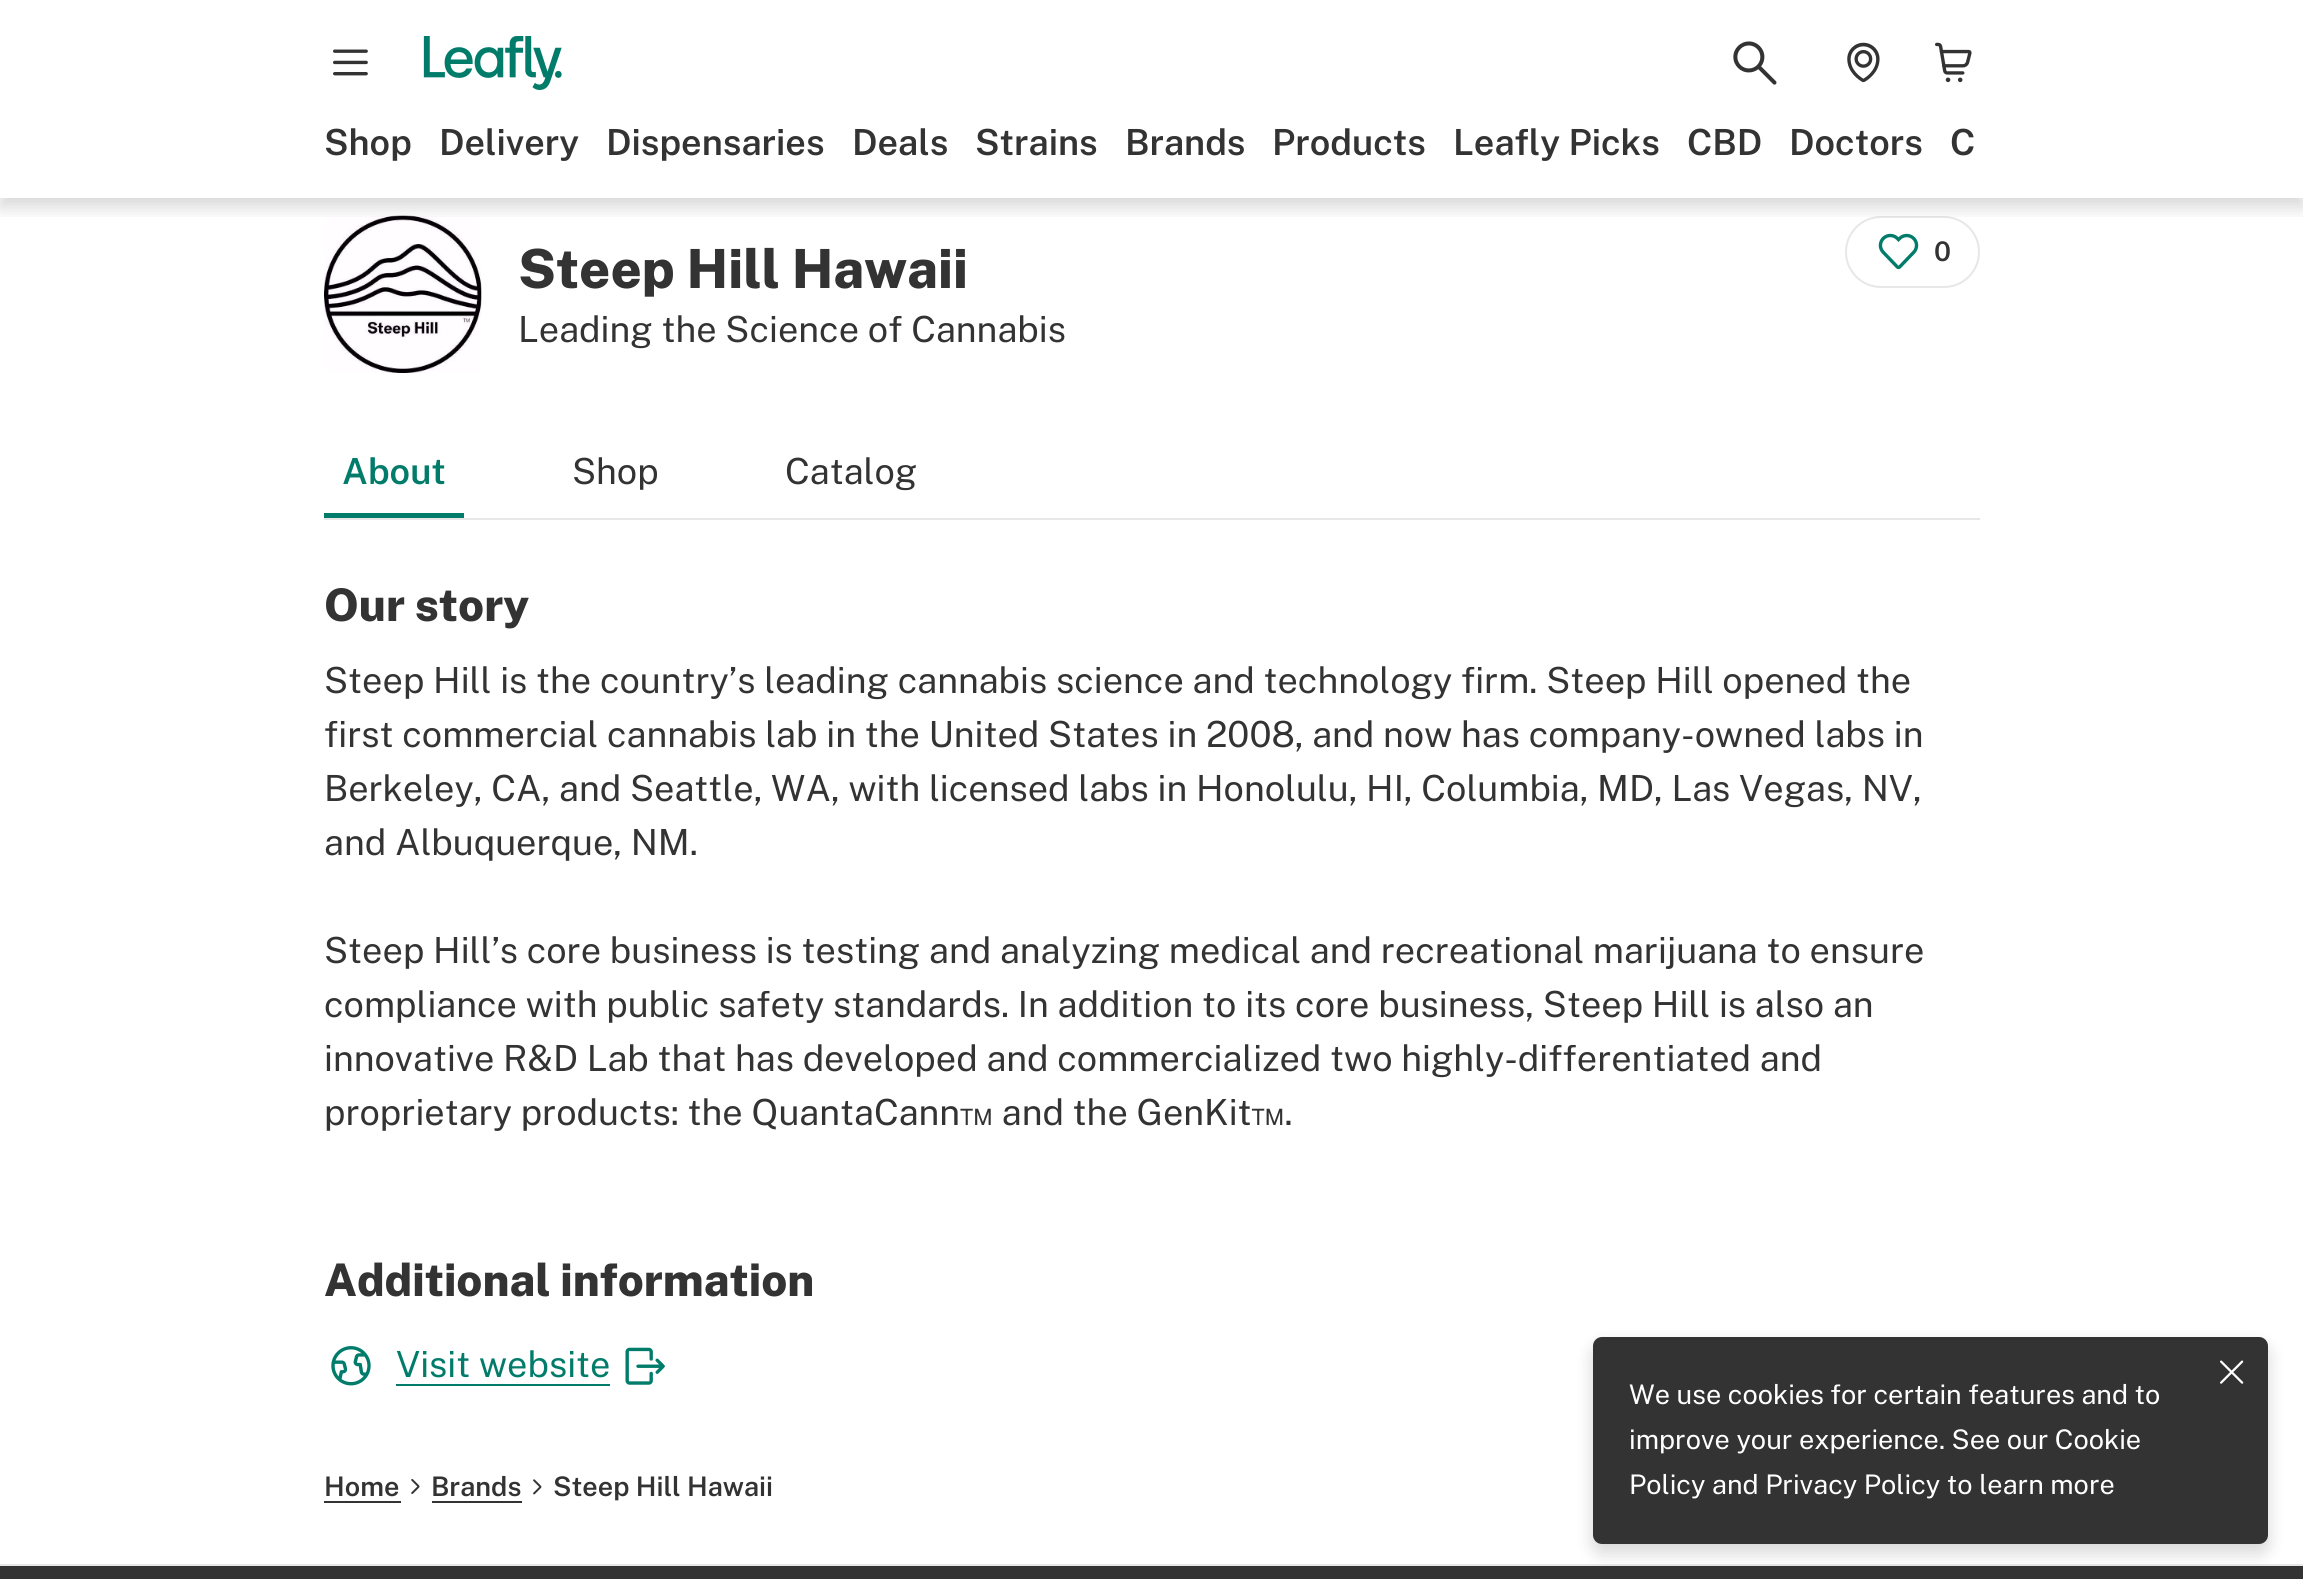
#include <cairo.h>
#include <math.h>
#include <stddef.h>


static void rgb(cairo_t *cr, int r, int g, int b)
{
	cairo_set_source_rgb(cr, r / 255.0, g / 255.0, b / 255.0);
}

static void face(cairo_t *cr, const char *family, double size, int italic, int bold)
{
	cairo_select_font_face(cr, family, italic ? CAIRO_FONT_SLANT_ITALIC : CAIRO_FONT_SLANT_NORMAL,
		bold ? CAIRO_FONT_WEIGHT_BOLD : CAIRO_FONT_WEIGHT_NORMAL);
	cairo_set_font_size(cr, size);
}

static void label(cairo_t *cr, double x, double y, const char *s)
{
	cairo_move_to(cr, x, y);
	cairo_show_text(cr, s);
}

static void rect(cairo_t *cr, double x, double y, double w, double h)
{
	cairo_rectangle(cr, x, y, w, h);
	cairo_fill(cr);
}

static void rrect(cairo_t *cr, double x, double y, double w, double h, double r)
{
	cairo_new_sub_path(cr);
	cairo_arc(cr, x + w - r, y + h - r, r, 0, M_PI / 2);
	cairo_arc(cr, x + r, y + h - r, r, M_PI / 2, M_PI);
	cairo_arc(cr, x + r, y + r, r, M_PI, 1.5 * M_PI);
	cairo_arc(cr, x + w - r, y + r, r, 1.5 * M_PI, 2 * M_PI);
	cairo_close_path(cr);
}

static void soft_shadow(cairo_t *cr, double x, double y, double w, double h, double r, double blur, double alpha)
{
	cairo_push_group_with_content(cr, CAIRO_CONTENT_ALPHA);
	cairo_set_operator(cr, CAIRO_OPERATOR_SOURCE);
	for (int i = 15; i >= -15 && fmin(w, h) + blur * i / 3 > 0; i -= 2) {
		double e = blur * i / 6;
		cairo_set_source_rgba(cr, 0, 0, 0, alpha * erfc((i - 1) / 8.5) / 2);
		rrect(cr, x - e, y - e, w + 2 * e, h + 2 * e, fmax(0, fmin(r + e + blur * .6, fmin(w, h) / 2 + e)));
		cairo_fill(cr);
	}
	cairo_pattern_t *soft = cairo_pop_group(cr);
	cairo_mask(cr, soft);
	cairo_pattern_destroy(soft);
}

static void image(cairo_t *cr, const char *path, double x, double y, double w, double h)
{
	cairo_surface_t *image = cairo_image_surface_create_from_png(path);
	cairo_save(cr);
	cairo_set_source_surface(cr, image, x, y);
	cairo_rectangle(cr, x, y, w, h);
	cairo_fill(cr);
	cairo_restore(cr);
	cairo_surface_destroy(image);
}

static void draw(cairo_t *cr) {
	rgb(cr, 255, 255, 255);
	cairo_paint(cr);
	image(cr, "image5.png", 324, 215, 158, 158);
	rrect(cr, 1846, 217, 133, 70, 35);
	rgb(cr, 231, 231, 231);
	cairo_stroke(cr);
	image(cr, "image6.png", 1878, 233, 41, 37);
	cairo_save(cr);
	cairo_rectangle(cr, 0, 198, 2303, 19);
	cairo_clip(cr);
	rgb(cr, 0, 0, 0);
	soft_shadow(cr, 0, 9, 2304, 198, 0, 9, 0.16);
	cairo_restore(cr);
	image(cr, "image0.png", 333, 49, 35, 27);
	image(cr, "image1.png", 423, 36, 139, 54);
	image(cr, "image2.png", 1733, 41, 44, 44);
	image(cr, "image3.png", 1847, 42, 33, 41);
	image(cr, "image4.png", 1935, 42, 37, 41);
	face(cr, "Public Sans SemiBold", 36, 0, 0);
	rgb(cr, 51, 51, 51);
	label(cr, 324, 155, "Shop");
	label(cr, 439, 155, "Delivery");
	label(cr, 606, 155, "Dispensaries");
	label(cr, 852, 155, "Deals");
	label(cr, 975, 155, "Strains");
	label(cr, 1125, 155, "Brands");
	label(cr, 1272, 155, "Products");
	label(cr, 1453, 155, "Leafly Picks");
	label(cr, 1687, 155, "CBD");
	label(cr, 1789, 155, "Doctors");
	label(cr, 1950, 155, "C");
	face(cr, "Public Sans ExtraBold", 54, 0, 0);
	label(cr, 518, 288, "Steep Hill Hawaii");
	face(cr, "Public Sans", 36, 0, 0);
	label(cr, 518, 342, "Leading the Science of Cannabis");
	face(cr, "Public Sans SemiBold", 27, 0, 0);
	label(cr, 1934, 261, "0");
	rgb(cr, 231, 231, 231);
	rect(cr, 324, 518, 1656, 2);
	rgb(cr, 1, 124, 107);
	rect(cr, 324, 513, 140, 5);
	face(cr, "Public Sans SemiBold", 36, 0, 0);
	label(cr, 342, 484, "About");
	face(cr, "Public Sans", 36, 0, 0);
	rgb(cr, 51, 51, 51);
	label(cr, 572, 484, "Shop");
	label(cr, 785, 484, "Catalog");
	face(cr, "Public Sans ExtraBold", 45, 0, 0);
	label(cr, 324, 621, "Our story");
	face(cr, "Public Sans", 36, 0, 0);
	label(cr, 324, 693, "Steep Hill is the country’s leading cannabis science and technology firm. Steep Hill opened the");
	label(cr, 324, 747, "first commercial cannabis lab in the United States in 2008, and now has company-owned labs in");
	label(cr, 324, 801, "Berkeley, CA, and Seattle, WA, with licensed labs in Honolulu, HI, Columbia, MD, Las Vegas, NV,");
	label(cr, 324, 855, "and Albuquerque, NM.");
	label(cr, 324, 963, "Steep Hill’s core business is testing and analyzing medical and recreational marijuana to ensure");
	label(cr, 324, 1017, "compliance with public safety standards. In addition to its core business, Steep Hill is also an");
	label(cr, 324, 1071, "innovative R&D Lab that has developed and commercialized two highly-differentiated and");
	label(cr, 324, 1125, "proprietary products: the QuantaCann™ and the GenKit™.");
	face(cr, "Public Sans ExtraBold", 45, 0, 0);
	label(cr, 324, 1296, "Additional information");
	image(cr, "image7.png", 331, 1346, 40, 40);
	face(cr, "Public Sans", 36, 0, 0);
	rgb(cr, 1, 124, 107);
	label(cr, 396, 1377, "Visit website");
	rect(cr, 396, 1384, 214, 2);
	image(cr, "image8.png", 625, 1347, 40, 38);
	face(cr, "Public Sans SemiBold", 27, 0, 0);
	rgb(cr, 51, 51, 51);
	label(cr, 324, 1496, "Home");
	rect(cr, 324, 1501, 77, 2);
	image(cr, "image9.png", 411, 1479, 9, 15);
	label(cr, 431, 1496, "Brands");
	rect(cr, 432, 1501, 90, 2);
	image(cr, "image10.png", 533, 1479, 9, 16);
	label(cr, 553, 1496, "Steep Hill Hawaii");
	rgb(cr, 231, 231, 231);
	rect(cr, 0, 1564, 2303, 2);
	rgb(cr, 51, 51, 51);
	rect(cr, 0, 1566, 2303, 13);
	rgb(cr, 0, 0, 0);
	soft_shadow(cr, 1593, 1346, 675, 207, 9, 9, 0.16);
	rgb(cr, 51, 51, 51);
	rrect(cr, 1593, 1337, 675, 207, 9);
	cairo_fill(cr);
	image(cr, "image11.png", 2220, 1360, 24, 24);
	face(cr, "Public Sans", 27, 0, 0);
	rgb(cr, 255, 255, 255);
	label(cr, 1629, 1404, "We use cookies for certain features and to");
	label(cr, 1629, 1449, "improve your experience. See our Cookie");
	label(cr, 1629, 1494, "Policy and Privacy Policy to learn more");
}

int main(void) {
	cairo_surface_t *surface = cairo_image_surface_create(CAIRO_FORMAT_RGB24, 2303, 1579);
	cairo_t *cr = cairo_create(surface);
	cairo_font_options_t *options = cairo_font_options_create();
	cairo_font_options_set_hint_metrics(options, CAIRO_HINT_METRICS_OFF);
	cairo_font_options_set_hint_style(options, CAIRO_HINT_STYLE_NONE);
	cairo_set_font_options(cr, options);
	cairo_set_miter_limit(cr, 4);
	draw(cr);
	cairo_surface_write_to_png(surface, "render.png");
	cairo_font_options_destroy(options);
	cairo_destroy(cr);
	cairo_surface_destroy(surface);
	return 0;
}
